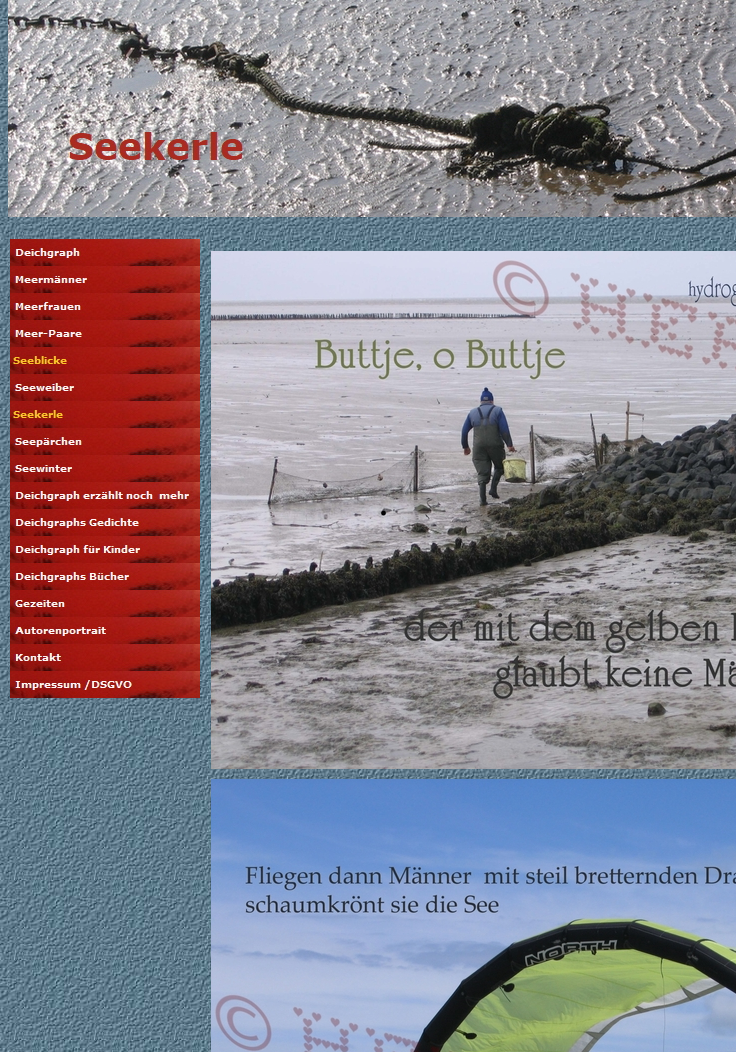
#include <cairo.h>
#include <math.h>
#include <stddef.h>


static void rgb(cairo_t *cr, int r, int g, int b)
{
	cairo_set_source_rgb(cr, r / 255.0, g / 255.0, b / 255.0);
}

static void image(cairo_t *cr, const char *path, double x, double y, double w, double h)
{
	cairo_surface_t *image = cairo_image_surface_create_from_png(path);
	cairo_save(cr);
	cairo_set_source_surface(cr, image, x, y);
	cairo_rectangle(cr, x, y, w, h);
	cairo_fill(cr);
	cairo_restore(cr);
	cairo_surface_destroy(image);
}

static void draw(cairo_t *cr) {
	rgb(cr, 255, 255, 255);
	cairo_paint(cr);
	image(cr, "image0.png", 0, 0, 736, 1052);
	image(cr, "image1.png", 8, 0, 728, 217);
	image(cr, "image2.png", 10, 239, 190, 27);
	image(cr, "image3.png", 10, 266, 190, 27);
	image(cr, "image4.png", 10, 293, 190, 27);
	image(cr, "image5.png", 10, 320, 190, 27);
	image(cr, "image6.png", 10, 347, 190, 27);
	image(cr, "image7.png", 10, 374, 190, 27);
	image(cr, "image8.png", 10, 401, 190, 27);
	image(cr, "image9.png", 10, 428, 190, 27);
	image(cr, "image10.png", 10, 455, 190, 27);
	image(cr, "image11.png", 10, 482, 190, 27);
	image(cr, "image12.png", 10, 509, 190, 27);
	image(cr, "image13.png", 10, 536, 190, 27);
	image(cr, "image14.png", 10, 563, 190, 27);
	image(cr, "image15.png", 10, 590, 190, 27);
	image(cr, "image16.png", 10, 617, 190, 27);
	image(cr, "image17.png", 10, 644, 190, 27);
	image(cr, "image18.png", 10, 671, 190, 27);
	image(cr, "image19.png", 211, 251, 525, 518);
	image(cr, "image20.png", 211, 779, 525, 273);
}

int main(void) {
	cairo_surface_t *surface = cairo_image_surface_create(CAIRO_FORMAT_RGB24, 736, 1052);
	cairo_t *cr = cairo_create(surface);
	cairo_font_options_t *options = cairo_font_options_create();
	cairo_font_options_set_hint_metrics(options, CAIRO_HINT_METRICS_OFF);
	cairo_font_options_set_hint_style(options, CAIRO_HINT_STYLE_NONE);
	cairo_set_font_options(cr, options);
	cairo_set_miter_limit(cr, 4);
	draw(cr);
	cairo_surface_write_to_png(surface, "render.png");
	cairo_font_options_destroy(options);
	cairo_destroy(cr);
	cairo_surface_destroy(surface);
	return 0;
}
